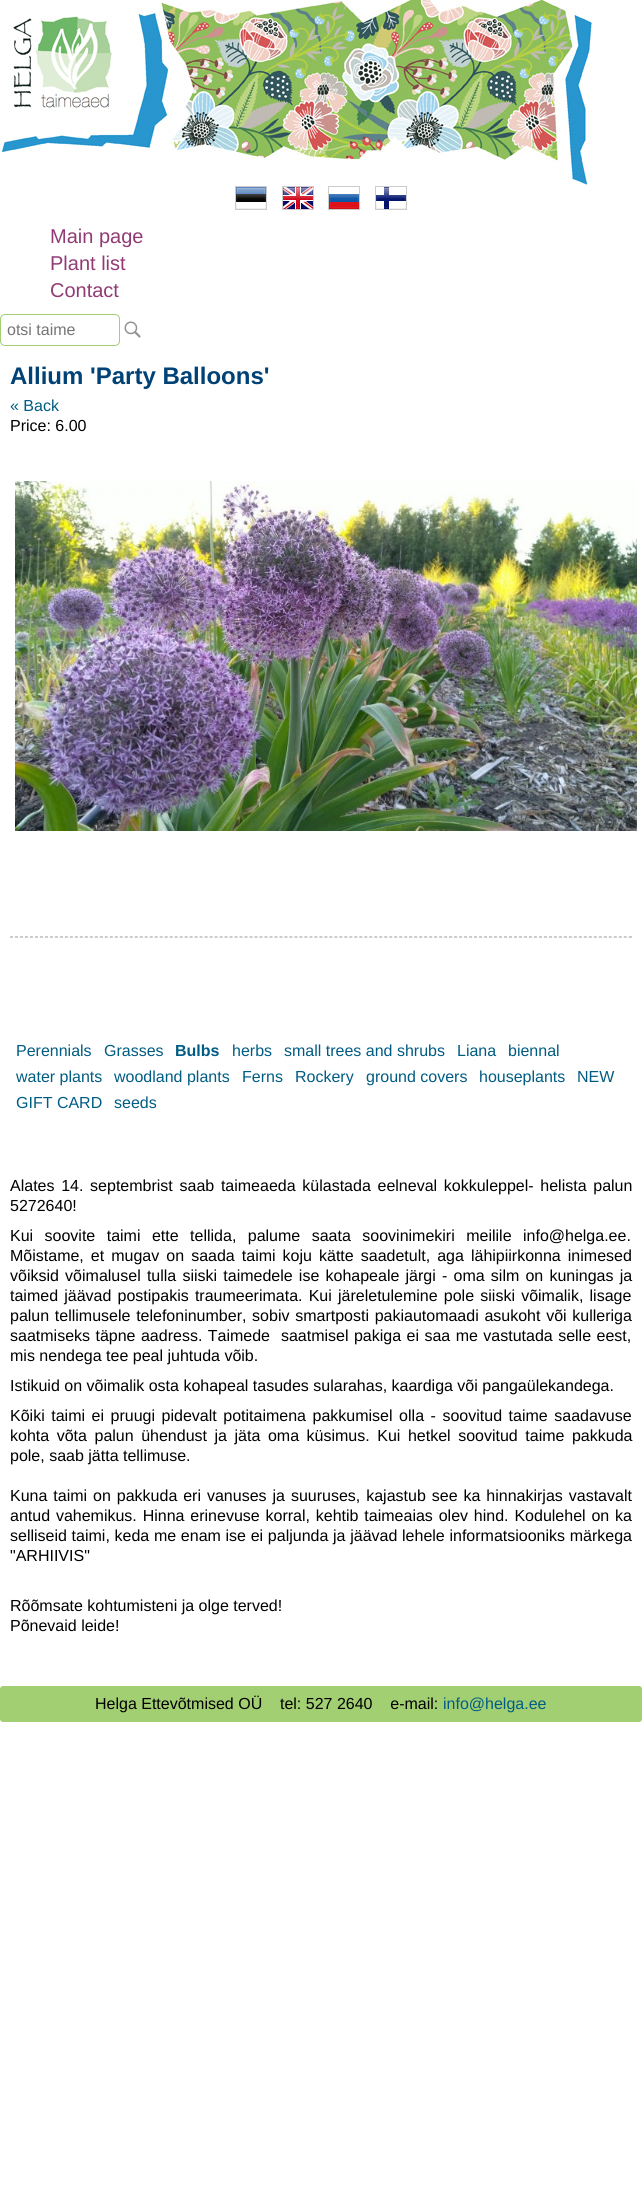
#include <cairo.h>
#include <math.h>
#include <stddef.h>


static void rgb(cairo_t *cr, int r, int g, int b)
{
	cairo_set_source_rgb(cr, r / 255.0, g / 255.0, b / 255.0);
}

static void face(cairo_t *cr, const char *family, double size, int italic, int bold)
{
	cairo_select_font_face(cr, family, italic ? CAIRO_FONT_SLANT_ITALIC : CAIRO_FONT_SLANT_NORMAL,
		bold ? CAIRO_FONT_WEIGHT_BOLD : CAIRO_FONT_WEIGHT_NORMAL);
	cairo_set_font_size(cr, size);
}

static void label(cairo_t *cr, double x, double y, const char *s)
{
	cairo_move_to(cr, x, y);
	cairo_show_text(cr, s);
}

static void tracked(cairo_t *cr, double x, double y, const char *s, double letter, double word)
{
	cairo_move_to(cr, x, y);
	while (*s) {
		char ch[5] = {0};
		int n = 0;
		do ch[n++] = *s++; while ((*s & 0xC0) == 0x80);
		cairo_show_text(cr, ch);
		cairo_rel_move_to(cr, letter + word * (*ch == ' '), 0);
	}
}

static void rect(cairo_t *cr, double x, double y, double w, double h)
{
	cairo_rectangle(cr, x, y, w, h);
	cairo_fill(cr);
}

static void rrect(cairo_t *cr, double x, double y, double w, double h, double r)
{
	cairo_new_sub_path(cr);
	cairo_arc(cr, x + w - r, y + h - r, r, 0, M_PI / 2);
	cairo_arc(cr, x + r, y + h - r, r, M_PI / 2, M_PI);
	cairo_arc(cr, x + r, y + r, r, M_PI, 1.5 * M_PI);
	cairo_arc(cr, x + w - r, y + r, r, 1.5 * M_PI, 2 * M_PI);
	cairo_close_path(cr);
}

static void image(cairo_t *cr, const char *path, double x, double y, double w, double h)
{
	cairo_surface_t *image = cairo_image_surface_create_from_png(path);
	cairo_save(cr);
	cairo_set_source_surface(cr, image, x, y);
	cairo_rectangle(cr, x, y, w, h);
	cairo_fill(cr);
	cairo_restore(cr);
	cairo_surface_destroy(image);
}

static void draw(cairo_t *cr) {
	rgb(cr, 255, 255, 255);
	cairo_paint(cr);
	image(cr, "image0.png", 0, 0, 592, 185);
	cairo_rectangle(cr, 235.5, 186.5, 31, 23);
	rgb(cr, 204, 204, 204);
	cairo_set_line_width(cr, 1);
	cairo_stroke(cr);
	image(cr, "image1.png", 236, 187, 30, 22);
	cairo_rectangle(cr, 282.5, 186.5, 31, 23);
	cairo_stroke(cr);
	image(cr, "image2.png", 283, 187, 30, 22);
	cairo_rectangle(cr, 328.5, 186.5, 31, 23);
	cairo_stroke(cr);
	image(cr, "image3.png", 329, 189, 30, 20);
	cairo_rectangle(cr, 375.5, 186.5, 31, 23);
	cairo_stroke(cr);
	image(cr, "image4.png", 376, 187, 30, 22);
	face(cr, "Liberation Sans", 20, 0, 0);
	rgb(cr, 145, 59, 117);
	label(cr, 50, 243, "Main page");
	label(cr, 50, 270, "Plant list");
	label(cr, 50, 297, "Contact");
	rrect(cr, 0.5, 314.5, 119, 31, 4.5);
	rgb(cr, 163, 207, 115);
	cairo_stroke(cr);
	face(cr, "Liberation Sans", 16, 0, 0);
	rgb(cr, 117, 117, 117);
	label(cr, 7, 335, "otsi taime");
	image(cr, "image5.png", 124, 321, 17, 17);
	face(cr, "Liberation Sans", 24, 0, 1);
	rgb(cr, 0, 66, 117);
	label(cr, 10, 384, "Allium 'Party Balloons'");
	face(cr, "Liberation Sans", 16, 0, 0);
	rgb(cr, 0, 92, 131);
	label(cr, 10, 411, "« Back");
	rgb(cr, 0, 0, 0);
	label(cr, 10, 431, "Price: 6.00");
	image(cr, "image6.png", 15, 481, 622, 350);
	cairo_new_path(cr);
	cairo_move_to(cr, 10, 936.5);
	cairo_line_to(cr, 632, 936.5);
	rgb(cr, 204, 204, 204);
	cairo_set_dash(cr, (double[]){3, 1.99}, 2, 0);
	cairo_stroke(cr);
	rect(cr, 631, 936, 1, 2);
	cairo_new_path(cr);
	cairo_move_to(cr, 10, 937.5);
	cairo_line_to(cr, 632, 937.5);
	cairo_stroke(cr);
	rgb(cr, 0, 92, 131);
	label(cr, 16, 1056, "Perennials");
	label(cr, 104, 1056, "Grasses");
	face(cr, "Liberation Sans", 16, 0, 1);
	label(cr, 175, 1056, "Bulbs");
	face(cr, "Liberation Sans", 16, 0, 0);
	label(cr, 232, 1056, "herbs");
	label(cr, 284, 1056, "small trees and shrubs");
	label(cr, 457, 1056, "Liana");
	label(cr, 508, 1056, "biennal");
	label(cr, 16, 1082, "water plants");
	label(cr, 114, 1082, "woodland plants");
	label(cr, 242, 1082, "Ferns");
	label(cr, 295, 1082, "Rockery");
	label(cr, 366, 1082, "ground covers");
	label(cr, 479, 1082, "houseplants");
	label(cr, 577, 1082, "NEW");
	label(cr, 16, 1108, "GIFT CARD");
	label(cr, 114, 1108, "seeds");
	rgb(cr, 0, 0, 0);
	tracked(cr, 10, 1191, "Alates 14. septembrist saab taimeaeda külastada eelneval kokkuleppel- helista palun", 0, 2.25);
	label(cr, 10, 1211, "5272640!");
	tracked(cr, 10, 1241, "Kui soovite taimi ette tellida, palume saata soovinimekiri meilile info@helga.ee.", 0, 7);
	tracked(cr, 10, 1261, "Mõistame, et mugav on saada taimi koju kätte saadetult, aga lähipiirkonna inimesed", 0, 2.6);
	tracked(cr, 10, 1281, "võiksid võimalusel tulla siiski taimedele ise kohapeale järgi - oma silm on kuningas ja", 0, 1.75);
	tracked(cr, 10, 1301, "taimed jäävad postipakis traumeerimata. Kui järeletulemine pole siiski võimalik, lisage", 0, 1.75);
	tracked(cr, 10, 1321, "palun tellimusele telefoninumber, sobiv smartposti pakiautomaadi asukoht või kulleriga", 0, 1.25);
	tracked(cr, 10, 1341, "saatmiseks täpne aadress. Taimede  saatmisel pakiga ei saa me vastutada selle eest,", 0, 1);
	label(cr, 10, 1361, "mis nendega tee peal juhtuda võib.");
	label(cr, 10, 1391, "Istikuid on võimalik osta kohapeal tasudes sularahas, kaardiga või pangaülekandega.");
	tracked(cr, 10, 1421, "Kõiki taimi ei pruugi pidevalt potitaimena pakkumisel olla - soovitud taime saadavuse", 0, 2.1);
	tracked(cr, 10, 1441, "kohta võta palun ühendust ja jäta oma küsimus. Kui hetkel soovitud taime pakkuda", 0, 3.1);
	label(cr, 10, 1461, "pole, saab jätta tellimuse.");
	tracked(cr, 10, 1501, "Kuna taimi on pakkuda eri vanuses ja suuruses, kajastub see ka hinnakirjas vastavalt", 0, 1.5);
	tracked(cr, 10, 1521, "antud vahemikus. Hinna erinevuse korral, kehtib taimeaias olev hind. Kodulehel on ka", 0, 1.4);
	tracked(cr, 10, 1541, "selliseid taimi, keda me enam ise ei paljunda ja jäävad lehele informatsiooniks märkega", 0, 0.25);
	label(cr, 10, 1561, "\"ARHIIVIS\"");
	label(cr, 10, 1611, "Rõõmsate kohtumisteni ja olge terved!");
	label(cr, 10, 1631, "Põnevaid leide!");
	rgb(cr, 163, 207, 115);
	rrect(cr, 0, 1686, 642, 36, 3);
	cairo_fill(cr);
	rgb(cr, 0, 0, 0);
	label(cr, 95, 1709, "Helga Ettevõtmised OÜ    tel: 527 2640    e-mail:");
	rgb(cr, 0, 92, 131);
	label(cr, 443, 1709, "info@helga.ee");
}

int main(void) {
	cairo_surface_t *surface = cairo_image_surface_create(CAIRO_FORMAT_RGB24, 642, 2194);
	cairo_t *cr = cairo_create(surface);
	cairo_font_options_t *options = cairo_font_options_create();
	cairo_font_options_set_hint_metrics(options, CAIRO_HINT_METRICS_OFF);
	cairo_font_options_set_hint_style(options, CAIRO_HINT_STYLE_NONE);
	cairo_set_font_options(cr, options);
	cairo_set_miter_limit(cr, 4);
	draw(cr);
	cairo_surface_write_to_png(surface, "render.png");
	cairo_font_options_destroy(options);
	cairo_destroy(cr);
	cairo_surface_destroy(surface);
	return 0;
}
